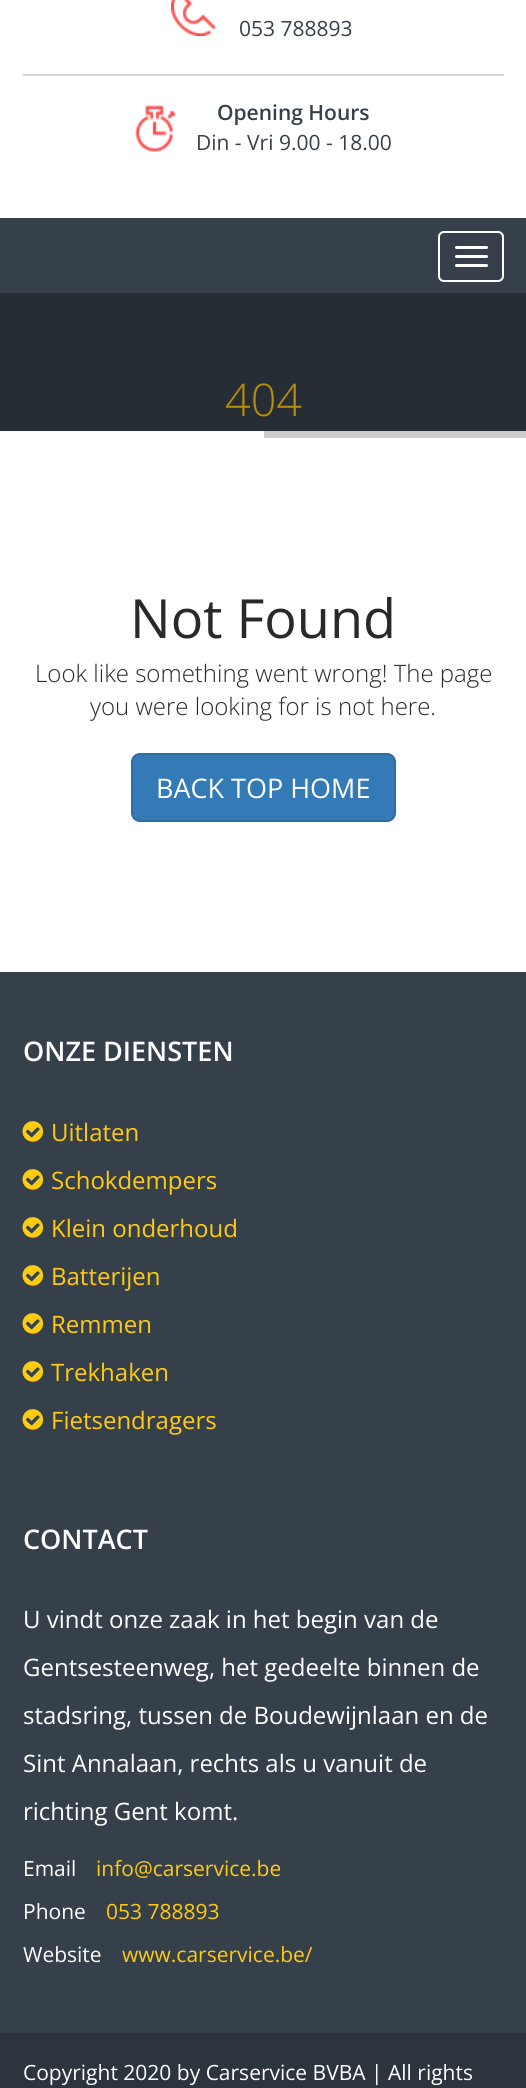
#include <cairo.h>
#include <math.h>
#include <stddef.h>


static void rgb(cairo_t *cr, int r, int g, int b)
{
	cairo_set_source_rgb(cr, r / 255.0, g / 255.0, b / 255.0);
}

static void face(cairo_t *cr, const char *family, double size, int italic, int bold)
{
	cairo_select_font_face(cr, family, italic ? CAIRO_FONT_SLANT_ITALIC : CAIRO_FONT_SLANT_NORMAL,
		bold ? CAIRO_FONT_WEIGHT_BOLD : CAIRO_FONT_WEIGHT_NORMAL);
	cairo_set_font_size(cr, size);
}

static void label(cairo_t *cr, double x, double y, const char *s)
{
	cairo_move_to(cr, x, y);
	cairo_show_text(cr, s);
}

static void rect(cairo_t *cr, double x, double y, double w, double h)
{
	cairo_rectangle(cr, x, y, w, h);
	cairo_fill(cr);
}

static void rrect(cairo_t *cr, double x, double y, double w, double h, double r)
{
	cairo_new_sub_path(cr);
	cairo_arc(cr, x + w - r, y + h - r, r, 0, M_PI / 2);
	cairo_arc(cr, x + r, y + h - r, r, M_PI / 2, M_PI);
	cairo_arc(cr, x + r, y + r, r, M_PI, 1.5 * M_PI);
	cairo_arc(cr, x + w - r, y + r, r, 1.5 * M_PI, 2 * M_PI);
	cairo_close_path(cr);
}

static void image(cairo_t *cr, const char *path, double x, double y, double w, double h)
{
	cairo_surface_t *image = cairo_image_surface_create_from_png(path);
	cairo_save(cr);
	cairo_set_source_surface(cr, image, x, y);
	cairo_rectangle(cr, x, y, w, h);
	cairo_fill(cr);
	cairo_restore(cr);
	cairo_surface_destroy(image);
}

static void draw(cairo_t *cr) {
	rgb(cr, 255, 255, 255);
	cairo_paint(cr);
	rgb(cr, 211, 211, 211);
	rect(cr, 23, 74, 481, 2);
	image(cr, "image0.png", 171, 0, 45, 36);
	face(cr, "Open Sans", 21, 0, 0);
	rgb(cr, 54, 64, 75);
	label(cr, 239, 36, "053 788893");
	image(cr, "image1.png", 135, 105, 41, 47);
	face(cr, "Open Sans SemiBold", 21, 0, 0);
	label(cr, 217, 120, "Opening Hours");
	face(cr, "Open Sans", 21, 0, 0);
	label(cr, 196, 150, "Din - Vri 9.00 - 18.00");
	rect(cr, 0, 218, 526, 75);
	rrect(cr, 439, 232, 64, 49, 5);
	rgb(cr, 255, 255, 255);
	cairo_stroke(cr);
	rrect(cr, 455, 246, 33, 3, 1.5);
	cairo_fill(cr);
	rrect(cr, 455, 255, 33, 3, 1.5);
	cairo_fill(cr);
	rrect(cr, 455, 264, 33, 3, 1.5);
	cairo_fill(cr);
	rgb(cr, 38, 45, 53);
	rect(cr, 0, 293, 526, 138);
	face(cr, "Open Sans Light", 45, 0, 0);
	rgb(cr, 179, 142, 11);
	label(cr, 225, 416, "404");
	rgb(cr, 204, 204, 204);
	rect(cr, 264, 431, 262, 7);
	face(cr, "Open Sans", 54, 0, 0);
	rgb(cr, 41, 41, 41);
	label(cr, 130, 638, "Not Found");
	face(cr, "Open Sans Light", 24, 0, 0);
	label(cr, 35, 682, "Look like something went wrong! The page");
	label(cr, 90, 715, "you were looking for is not here.");
	rgb(cr, 51, 122, 183);
	rrect(cr, 132, 754, 263, 67, 8);
	cairo_fill_preserve(cr);
	rgb(cr, 46, 109, 164);
	cairo_stroke(cr);
	face(cr, "Open Sans", 27, 0, 0);
	rgb(cr, 255, 255, 255);
	label(cr, 156, 798, "BACK TOP HOME");
	rgb(cr, 54, 64, 75);
	rect(cr, 0, 972, 526, 1061);
	face(cr, "Open Sans SemiBold", 27, 0, 0);
	rgb(cr, 255, 255, 255);
	label(cr, 23, 1061, "ONZE DIENSTEN");
	image(cr, "image2.png", 22, 1121, 22, 21);
	face(cr, "Open Sans", 24, 0, 0);
	rgb(cr, 255, 203, 16);
	label(cr, 51, 1141, "Uitlaten");
	image(cr, "image2.png", 22, 1169, 22, 21);
	label(cr, 51, 1189, "Schokdempers");
	image(cr, "image2.png", 22, 1217, 22, 21);
	label(cr, 51, 1237, "Klein onderhoud");
	image(cr, "image2.png", 22, 1265, 22, 21);
	label(cr, 51, 1285, "Batterijen");
	image(cr, "image2.png", 22, 1313, 22, 21);
	label(cr, 51, 1333, "Remmen");
	image(cr, "image2.png", 22, 1361, 22, 21);
	label(cr, 51, 1381, "Trekhaken");
	image(cr, "image2.png", 22, 1409, 22, 21);
	label(cr, 51, 1429, "Fietsendragers");
	face(cr, "Open Sans SemiBold", 27, 0, 0);
	rgb(cr, 255, 255, 255);
	label(cr, 23, 1549, "CONTACT");
	face(cr, "Open Sans", 24, 0, 0);
	label(cr, 23, 1628, "U vindt onze zaak in het begin van de");
	label(cr, 23, 1676, "Gentsesteenweg, het gedeelte binnen de");
	label(cr, 23, 1724, "stadsring, tussen de Boudewijnlaan en de");
	label(cr, 23, 1772, "Sint Annalaan, rechts als u vanuit de");
	label(cr, 23, 1820, "richting Gent komt.");
	face(cr, "Open Sans", 21, 0, 0);
	label(cr, 23, 1876, "Email");
	rgb(cr, 255, 203, 16);
	label(cr, 96, 1876, "info@carservice.be");
	rgb(cr, 255, 255, 255);
	label(cr, 23, 1919, "Phone");
	rgb(cr, 255, 203, 16);
	label(cr, 106, 1919, "053 788893");
	rgb(cr, 255, 255, 255);
	label(cr, 23, 1962, "Website");
	rgb(cr, 255, 203, 16);
	label(cr, 122, 1962, "www.carservice.be/");
	rgb(cr, 44, 52, 61);
	rect(cr, 0, 2033, 526, 55);
	rgb(cr, 255, 255, 255);
	label(cr, 23, 2080, "Copyright 2020 by Carservice BVBA | All rights");
}

int main(void) {
	cairo_surface_t *surface = cairo_image_surface_create(CAIRO_FORMAT_RGB24, 526, 2088);
	cairo_t *cr = cairo_create(surface);
	cairo_font_options_t *options = cairo_font_options_create();
	cairo_font_options_set_hint_metrics(options, CAIRO_HINT_METRICS_OFF);
	cairo_font_options_set_hint_style(options, CAIRO_HINT_STYLE_NONE);
	cairo_set_font_options(cr, options);
	cairo_set_miter_limit(cr, 4);
	draw(cr);
	cairo_surface_write_to_png(surface, "render.png");
	cairo_font_options_destroy(options);
	cairo_destroy(cr);
	cairo_surface_destroy(surface);
	return 0;
}
